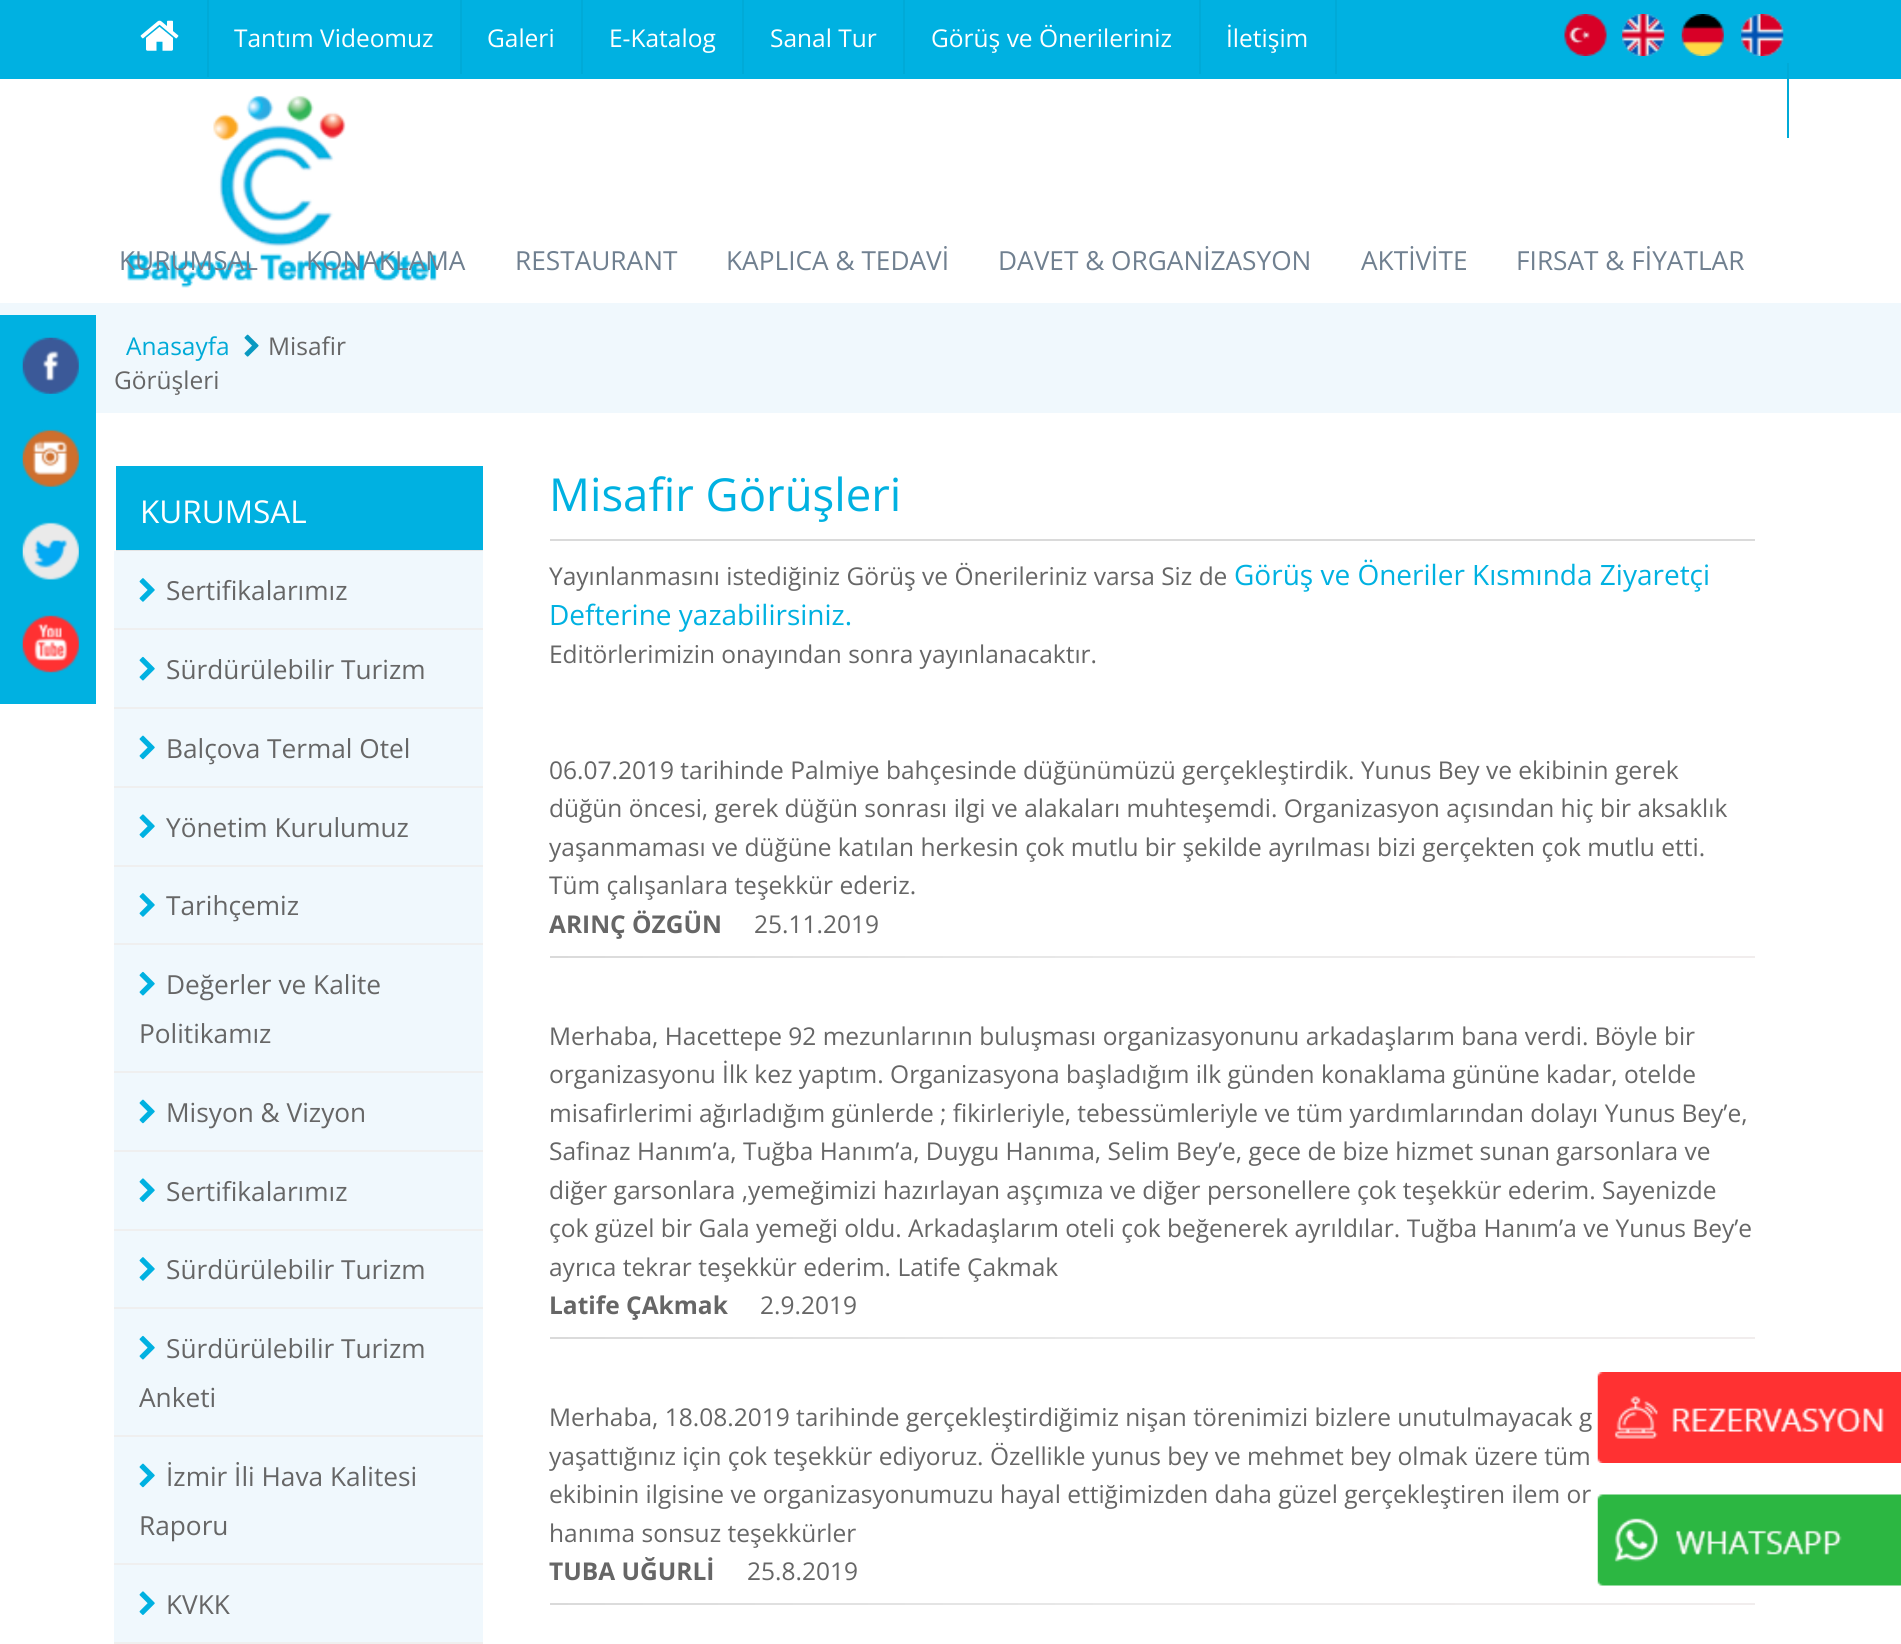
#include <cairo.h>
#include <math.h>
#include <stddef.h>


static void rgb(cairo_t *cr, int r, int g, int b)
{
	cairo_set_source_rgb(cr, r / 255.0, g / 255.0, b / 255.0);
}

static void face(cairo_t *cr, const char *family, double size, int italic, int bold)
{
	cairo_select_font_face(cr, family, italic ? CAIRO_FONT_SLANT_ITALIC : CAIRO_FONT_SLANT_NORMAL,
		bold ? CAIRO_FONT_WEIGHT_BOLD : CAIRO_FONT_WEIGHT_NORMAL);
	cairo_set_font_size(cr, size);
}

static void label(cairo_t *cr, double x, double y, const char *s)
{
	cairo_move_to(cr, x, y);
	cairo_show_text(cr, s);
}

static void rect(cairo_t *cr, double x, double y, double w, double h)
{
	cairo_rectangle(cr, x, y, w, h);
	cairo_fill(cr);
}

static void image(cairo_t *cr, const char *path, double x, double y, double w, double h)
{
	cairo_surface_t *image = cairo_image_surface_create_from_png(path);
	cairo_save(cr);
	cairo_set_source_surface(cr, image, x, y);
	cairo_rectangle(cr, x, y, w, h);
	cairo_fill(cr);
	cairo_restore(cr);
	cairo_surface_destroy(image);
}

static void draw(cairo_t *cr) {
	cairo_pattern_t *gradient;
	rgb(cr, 255, 255, 255);
	cairo_paint(cr);
	rgb(cr, 0, 177, 225);
	rect(cr, 0, 0, 1901, 79);
	rgb(cr, 0, 170, 215);
	rect(cr, 207, 0, 2, 77);
	image(cr, "image0.png", 140, 20, 39, 31);
	rect(cr, 460, 0, 2, 74);
	face(cr, "Open Sans", 24.5, 0, 0);
	rgb(cr, 255, 255, 255);
	label(cr, 234, 47, "Tantım Videomuz");
	rgb(cr, 0, 170, 215);
	rect(cr, 581, 0, 2, 74);
	rgb(cr, 255, 255, 255);
	label(cr, 487, 47, "Galeri");
	rgb(cr, 0, 170, 215);
	rect(cr, 742, 0, 2, 74);
	rgb(cr, 255, 255, 255);
	label(cr, 609, 47, "E-Katalog");
	rgb(cr, 0, 170, 215);
	rect(cr, 903, 0, 2, 74);
	rgb(cr, 255, 255, 255);
	label(cr, 770, 47, "Sanal Tur");
	rgb(cr, 0, 170, 215);
	rect(cr, 1199, 0, 2, 74);
	rgb(cr, 255, 255, 255);
	label(cr, 931, 47, "Görüş ve Önerileriniz");
	rgb(cr, 0, 170, 215);
	rect(cr, 1335, 0, 2, 74);
	rgb(cr, 255, 255, 255);
	label(cr, 1226, 47, "İletişim");
	image(cr, "image1.png", 1564, 14, 43, 42);
	image(cr, "image2.png", 1622, 14, 43, 42);
	image(cr, "image3.png", 1681, 14, 43, 42);
	image(cr, "image4.png", 1741, 14, 43, 42);
	rgb(cr, 0, 170, 215);
	rect(cr, 1787, 63, 2, 75);
	image(cr, "image5.png", 127, 95, 310, 193);
	face(cr, "Open Sans", 26.25, 0, 0);
	rgb(cr, 112, 128, 144);
	label(cr, 119, 270, "KURUMSAL");
	label(cr, 306, 270, "KONAKLAMA");
	label(cr, 515, 270, "RESTAURANT");
	label(cr, 726, 270, "KAPLICA & TEDAVİ");
	label(cr, 998, 270, "DAVET & ORGANİZASYON");
	label(cr, 1361, 270, "AKTİVİTE");
	label(cr, 1516, 270, "FIRSAT & FİYATLAR");
	rgb(cr, 240, 248, 253);
	rect(cr, 0, 303, 1901, 110);
	rgb(cr, 0, 177, 225);
	rect(cr, 0, 315, 96, 389);
	image(cr, "image6.png", 22, 337, 57, 57);
	image(cr, "image7.png", 22, 429, 57, 58);
	image(cr, "image8.png", 22, 522, 57, 58);
	image(cr, "image9.png", 22, 615, 57, 58);
	face(cr, "Open Sans", 24.5, 0, 0);
	rgb(cr, 0, 170, 215);
	label(cr, 126, 355, "Anasayfa");
	image(cr, "image10.png", 244, 334, 15, 23);
	rgb(cr, 102, 102, 102);
	label(cr, 268, 355, "Misafir");
	label(cr, 114, 389, "Görüşleri");
	rgb(cr, 0, 177, 225);
	rect(cr, 116, 466, 367, 84);
	rgb(cr, 228, 228, 228);
	rect(cr, 116, 550, 367, 1);
	face(cr, "Open Sans", 31.5, 0, 0);
	rgb(cr, 255, 255, 255);
	label(cr, 140, 523, "KURUMSAL");
	rgb(cr, 240, 248, 253);
	rect(cr, 114, 551, 369, 1091);
	rgb(cr, 239, 239, 239);
	rect(cr, 114, 628, 369, 2);
	image(cr, "image11.png", 139, 578, 16, 24);
	face(cr, "Open Sans", 26.25, 0, 0);
	rgb(cr, 102, 102, 102);
	label(cr, 166, 600, "Sertifikalarımız");
	rgb(cr, 239, 239, 239);
	rect(cr, 114, 707, 369, 2);
	image(cr, "image12.png", 139, 656, 16, 25);
	rgb(cr, 102, 102, 102);
	label(cr, 166, 679, "Sürdürülebilir Turizm");
	rgb(cr, 239, 239, 239);
	rect(cr, 114, 786, 369, 2);
	image(cr, "image13.png", 139, 735, 16, 25);
	rgb(cr, 102, 102, 102);
	label(cr, 166, 758, "Balçova Termal Otel");
	rgb(cr, 239, 239, 239);
	rect(cr, 114, 865, 369, 2);
	image(cr, "image14.png", 139, 814, 16, 24);
	rgb(cr, 102, 102, 102);
	label(cr, 166, 837, "Yönetim Kurulumuz");
	rgb(cr, 239, 239, 239);
	rect(cr, 114, 943, 369, 2);
	image(cr, "image11.png", 139, 893, 16, 24);
	rgb(cr, 102, 102, 102);
	label(cr, 166, 915, "Tarihçemiz");
	rgb(cr, 239, 239, 239);
	rect(cr, 114, 1071, 369, 2);
	image(cr, "image12.png", 139, 971, 16, 25);
	rgb(cr, 102, 102, 102);
	label(cr, 166, 994, "Değerler ve Kalite");
	label(cr, 139, 1043, "Politikamız");
	rgb(cr, 239, 239, 239);
	rect(cr, 114, 1150, 369, 2);
	image(cr, "image13.png", 139, 1099, 16, 25);
	rgb(cr, 102, 102, 102);
	label(cr, 166, 1122, "Misyon & Vizyon");
	rgb(cr, 239, 239, 239);
	rect(cr, 114, 1229, 369, 2);
	image(cr, "image14.png", 139, 1178, 16, 24);
	rgb(cr, 102, 102, 102);
	label(cr, 166, 1201, "Sertifikalarımız");
	rgb(cr, 239, 239, 239);
	rect(cr, 114, 1307, 369, 2);
	image(cr, "image11.png", 139, 1257, 16, 24);
	rgb(cr, 102, 102, 102);
	label(cr, 166, 1279, "Sürdürülebilir Turizm");
	rgb(cr, 239, 239, 239);
	rect(cr, 114, 1435, 369, 2);
	image(cr, "image12.png", 139, 1335, 16, 25);
	rgb(cr, 102, 102, 102);
	label(cr, 166, 1358, "Sürdürülebilir Turizm");
	label(cr, 139, 1407, "Anketi");
	rgb(cr, 239, 239, 239);
	rect(cr, 114, 1563, 369, 2);
	image(cr, "image13.png", 139, 1463, 16, 25);
	rgb(cr, 102, 102, 102);
	label(cr, 166, 1486, "İzmir İli Hava Kalitesi");
	label(cr, 139, 1535, "Raporu");
	rgb(cr, 239, 239, 239);
	rect(cr, 114, 1642, 369, 2);
	image(cr, "image14.png", 139, 1591, 16, 24);
	rgb(cr, 102, 102, 102);
	label(cr, 166, 1614, "KVKK");
	rgb(cr, 218, 218, 218);
	rect(cr, 550, 539, 1205, 2);
	face(cr, "Open Sans", 45.5, 0, 0);
	rgb(cr, 0, 177, 225);
	label(cr, 549, 511, "Misafir Görüşleri");
	face(cr, "Open Sans", 24.5, 0, 0);
	rgb(cr, 102, 102, 102);
	label(cr, 549, 585, "Yayınlanmasını istediğiniz Görüş ve Önerileriniz varsa Siz de");
	face(cr, "Open Sans", 28, 0, 0);
	rgb(cr, 0, 177, 225);
	label(cr, 1234, 585, "Görüş ve Öneriler Kısmında Ziyaretçi");
	label(cr, 549, 625, "Defterine yazabilirsiniz.");
	face(cr, "Open Sans", 24.5, 0, 0);
	rgb(cr, 102, 102, 102);
	label(cr, 549, 663, "Editörlerimizin onayından sonra yayınlanacaktır.");
	label(cr, 549, 779, "06.07.2019 tarihinde Palmiye bahçesinde düğünümüzü gerçekleştirdik. Yunus Bey ve ekibinin gerek");
	label(cr, 549, 817, "düğün öncesi, gerek düğün sonrası ilgi ve alakaları muhteşemdi. Organizasyon açısından hiç bir aksaklık");
	label(cr, 549, 856, "yaşanmaması ve düğüne katılan herkesin çok mutlu bir şekilde ayrılması bizi gerçekten çok mutlu etti.");
	label(cr, 549, 894, "Tüm çalışanlara teşekkür ederiz.");
	face(cr, "Open Sans", 24.5, 0, 1);
	label(cr, 549, 933, "ARINÇ ÖZGÜN");
	face(cr, "Open Sans", 24.5, 0, 0);
	label(cr, 754, 933, "25.11.2019");
	gradient = cairo_pattern_create_linear(550, 956, 1755, 956);
	cairo_pattern_add_color_stop_rgba(gradient, 0, 0.855, 0.855, 0.855, 1);
	cairo_pattern_add_color_stop_rgba(gradient, 0.5, 0.918, 0.918, 0.918, 1);
	cairo_pattern_add_color_stop_rgba(gradient, 1, 0.945, 0.929, 0.929, 1);
	cairo_set_source(cr, gradient);
	cairo_pattern_destroy(gradient);
	rect(cr, 550, 956, 1205, 2);
	rgb(cr, 102, 102, 102);
	label(cr, 549, 1045, "Merhaba, Hacettepe 92 mezunlarının buluşması organizasyonunu arkadaşlarım bana verdi. Böyle bir");
	label(cr, 549, 1083, "organizasyonu İlk kez yaptım. Organizasyona başladığım ilk günden konaklama gününe kadar, otelde");
	label(cr, 549, 1122, "misafirlerimi ağırladığım günlerde ; fikirleriyle, tebessümleriyle ve tüm yardımlarından dolayı Yunus Bey’e,");
	label(cr, 549, 1160, "Safinaz Hanım’a, Tuğba Hanım’a, Duygu Hanıma, Selim Bey’e, gece de bize hizmet sunan garsonlara ve");
	label(cr, 549, 1199, "diğer garsonlara ,yemeğimizi hazırlayan aşçımıza ve diğer personellere çok teşekkür ederim. Sayenizde");
	label(cr, 549, 1237, "çok güzel bir Gala yemeği oldu. Arkadaşlarım oteli çok beğenerek ayrıldılar. Tuğba Hanım’a ve Yunus Bey’e");
	label(cr, 549, 1276, "ayrıca tekrar teşekkür ederim. Latife Çakmak");
	face(cr, "Open Sans", 24.5, 0, 1);
	label(cr, 549, 1314, "Latife ÇAkmak");
	face(cr, "Open Sans", 24.5, 0, 0);
	label(cr, 760, 1314, "2.9.2019");
	gradient = cairo_pattern_create_linear(550, 1338, 1755, 1338);
	cairo_pattern_add_color_stop_rgba(gradient, 0, 0.855, 0.855, 0.855, 1);
	cairo_pattern_add_color_stop_rgba(gradient, 0.5, 0.918, 0.918, 0.918, 1);
	cairo_pattern_add_color_stop_rgba(gradient, 1, 0.945, 0.929, 0.929, 1);
	cairo_set_source(cr, gradient);
	cairo_pattern_destroy(gradient);
	rect(cr, 550, 1337, 1205, 2);
	rgb(cr, 102, 102, 102);
	label(cr, 549, 1426, "Merhaba, 18.08.2019 tarihinde gerçekleştirdiğimiz nişan törenimizi bizlere unutulmayacak g");
	label(cr, 549, 1465, "yaşattığınız için çok teşekkür ediyoruz. Özellikle yunus bey ve mehmet bey olmak üzere tüm");
	label(cr, 549, 1503, "ekibinin ilgisine ve organizasyonumuzu hayal ettiğimizden daha güzel gerçekleştiren ilem or");
	label(cr, 549, 1542, "hanıma sonsuz teşekkürler");
	face(cr, "Open Sans", 24.5, 0, 1);
	label(cr, 549, 1580, "TUBA UĞURLİ");
	face(cr, "Open Sans", 24.5, 0, 0);
	label(cr, 747, 1580, "25.8.2019");
	gradient = cairo_pattern_create_linear(550, 1604, 1755, 1604);
	cairo_pattern_add_color_stop_rgba(gradient, 0, 0.855, 0.855, 0.855, 1);
	cairo_pattern_add_color_stop_rgba(gradient, 0.5, 0.918, 0.918, 0.918, 1);
	cairo_pattern_add_color_stop_rgba(gradient, 1, 0.945, 0.929, 0.929, 1);
	cairo_set_source(cr, gradient);
	cairo_pattern_destroy(gradient);
	rect(cr, 550, 1603, 1205, 2);
	image(cr, "image15.png", 1597, 1372, 304, 91);
	image(cr, "image16.png", 1597, 1494, 304, 92);
}

int main(void) {
	cairo_surface_t *surface = cairo_image_surface_create(CAIRO_FORMAT_RGB24, 1901, 1644);
	cairo_t *cr = cairo_create(surface);
	cairo_font_options_t *options = cairo_font_options_create();
	cairo_font_options_set_hint_metrics(options, CAIRO_HINT_METRICS_OFF);
	cairo_font_options_set_hint_style(options, CAIRO_HINT_STYLE_NONE);
	cairo_set_font_options(cr, options);
	cairo_set_miter_limit(cr, 4);
	draw(cr);
	cairo_surface_write_to_png(surface, "render.png");
	cairo_font_options_destroy(options);
	cairo_destroy(cr);
	cairo_surface_destroy(surface);
	return 0;
}
